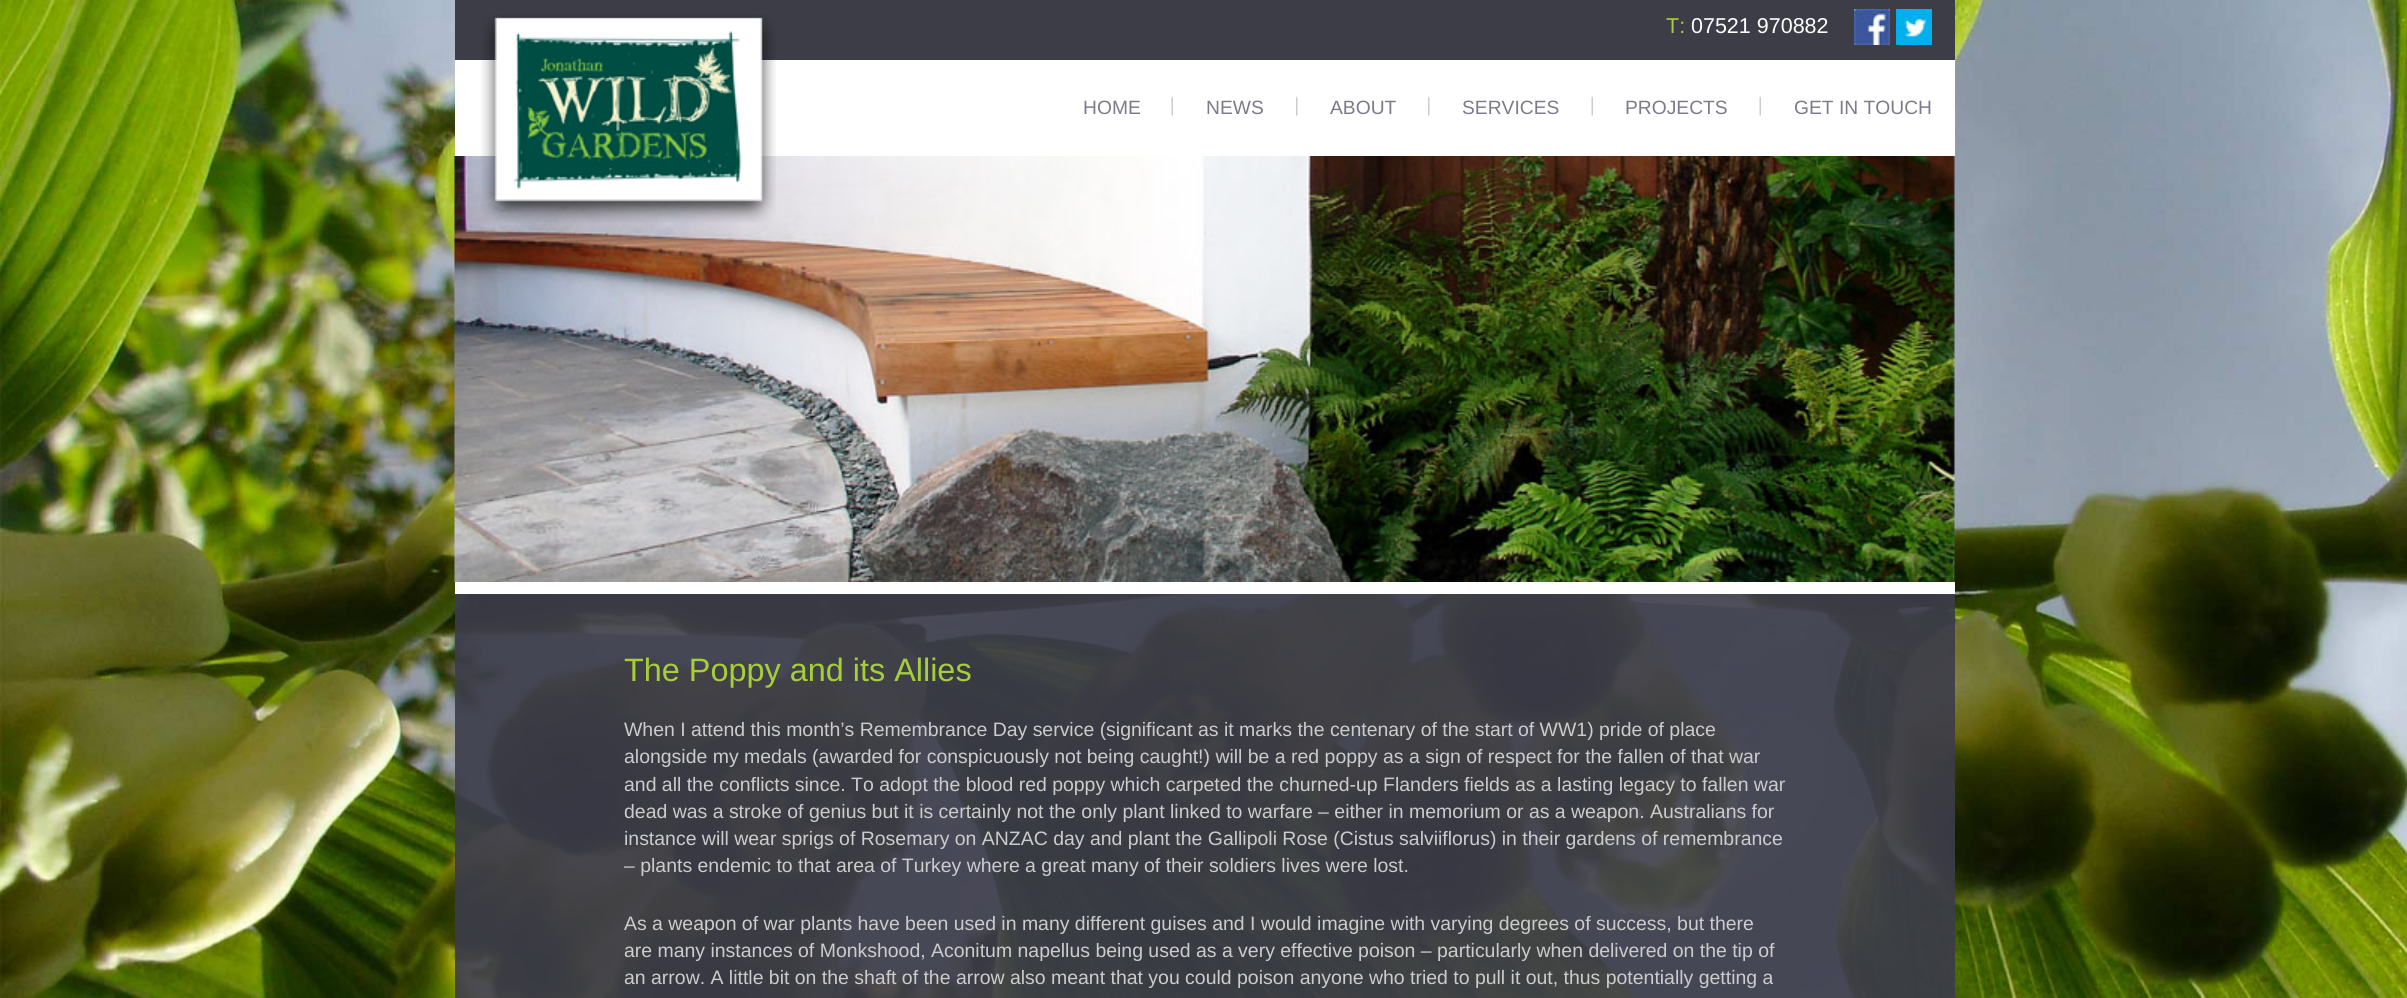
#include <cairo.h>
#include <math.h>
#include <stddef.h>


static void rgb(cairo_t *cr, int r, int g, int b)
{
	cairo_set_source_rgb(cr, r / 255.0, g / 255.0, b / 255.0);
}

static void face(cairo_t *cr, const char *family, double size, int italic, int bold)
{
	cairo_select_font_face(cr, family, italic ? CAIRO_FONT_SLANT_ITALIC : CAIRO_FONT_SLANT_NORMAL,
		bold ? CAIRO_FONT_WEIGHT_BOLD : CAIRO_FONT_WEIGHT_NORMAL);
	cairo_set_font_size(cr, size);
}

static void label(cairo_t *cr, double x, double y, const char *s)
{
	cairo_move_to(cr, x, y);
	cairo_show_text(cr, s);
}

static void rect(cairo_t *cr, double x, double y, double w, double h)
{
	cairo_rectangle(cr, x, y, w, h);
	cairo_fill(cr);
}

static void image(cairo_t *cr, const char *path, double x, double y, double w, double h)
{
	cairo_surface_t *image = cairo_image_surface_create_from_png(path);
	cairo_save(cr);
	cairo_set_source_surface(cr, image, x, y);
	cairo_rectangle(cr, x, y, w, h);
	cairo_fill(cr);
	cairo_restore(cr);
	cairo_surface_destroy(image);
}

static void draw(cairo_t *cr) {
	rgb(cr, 255, 255, 255);
	cairo_paint(cr);
	image(cr, "image0.png", 0, 0, 2407, 998);
	rgb(cr, 60, 61, 70);
	rect(cr, 455, 0, 1500, 60);
	face(cr, "Liberation Sans", 21.5, 0, 0);
	rgb(cr, 166, 206, 57);
	label(cr, 1666, 33, "T:");
	rgb(cr, 255, 255, 255);
	label(cr, 1691, 33, "07521 970882");
	image(cr, "image1.png", 1854, 9, 36, 36);
	image(cr, "image2.png", 1896, 9, 36, 36);
	rect(cr, 455, 60, 1500, 96);
	image(cr, "image6.png", 454, 156, 1501, 426);
	image(cr, "image3.png", 481, 14, 295, 209);
	image(cr, "image4.png", 1171, 96, 2, 20);
	face(cr, "Liberation Sans", 19.25, 0, 0);
	rgb(cr, 123, 123, 139);
	label(cr, 1083, 114, "HOME");
	image(cr, "image5.png", 1296, 96, 2, 20);
	label(cr, 1206, 114, "NEWS");
	image(cr, "image5.png", 1428, 96, 2, 20);
	label(cr, 1330, 114, "ABOUT");
	image(cr, "image4.png", 1591, 96, 2, 20);
	label(cr, 1462, 114, "SERVICES");
	image(cr, "image4.png", 1759, 96, 2, 20);
	label(cr, 1625, 114, "PROJECTS");
	label(cr, 1794, 114, "GET IN TOUCH");
	rgb(cr, 255, 255, 255);
	rect(cr, 455, 582, 1500, 12);
	cairo_set_source_rgba(cr, 0.235, 0.235, 0.294, 0.9);
	rect(cr, 455, 594, 1500, 404);
	face(cr, "Liberation Sans", 32.4, 0, 0);
	rgb(cr, 166, 206, 57);
	label(cr, 624, 681, "The Poppy and its Allies");
	face(cr, "Liberation Sans", 19.45, 0, 0);
	rgb(cr, 204, 204, 204);
	label(cr, 624, 736, "When I attend this month’s Remembrance Day service (significant as it marks the centenary of the start of WW1) pride of place");
	label(cr, 624, 763, "alongside my medals (awarded for conspicuously not being caught!) will be a red poppy as a sign of respect for the fallen of that war");
	label(cr, 624, 791, "and all the conflicts since. To adopt the blood red poppy which carpeted the churned-up Flanders fields as a lasting legacy to fallen war");
	label(cr, 624, 818, "dead was a stroke of genius but it is certainly not the only plant linked to warfare – either in memorium or as a weapon. Australians for");
	label(cr, 624, 845, "instance will wear sprigs of Rosemary on ANZAC day and plant the Gallipoli Rose (Cistus salviiflorus) in their gardens of remembrance");
	label(cr, 624, 872, "– plants endemic to that area of Turkey where a great many of their soldiers lives were lost.");
	label(cr, 624, 930, "As a weapon of war plants have been used in many different guises and I would imagine with varying degrees of success, but there");
	label(cr, 624, 957, "are many instances of Monkshood, Aconitum napellus being used as a very effective poison – particularly when delivered on the tip of");
	label(cr, 624, 984, "an arrow. A little bit on the shaft of the arrow also meant that you could poison anyone who tried to pull it out, thus potentially getting a");
}

int main(void) {
	cairo_surface_t *surface = cairo_image_surface_create(CAIRO_FORMAT_RGB24, 2407, 998);
	cairo_t *cr = cairo_create(surface);
	cairo_font_options_t *options = cairo_font_options_create();
	cairo_font_options_set_hint_metrics(options, CAIRO_HINT_METRICS_OFF);
	cairo_font_options_set_hint_style(options, CAIRO_HINT_STYLE_NONE);
	cairo_set_font_options(cr, options);
	cairo_set_miter_limit(cr, 4);
	draw(cr);
	cairo_surface_write_to_png(surface, "render.png");
	cairo_font_options_destroy(options);
	cairo_destroy(cr);
	cairo_surface_destroy(surface);
	return 0;
}
